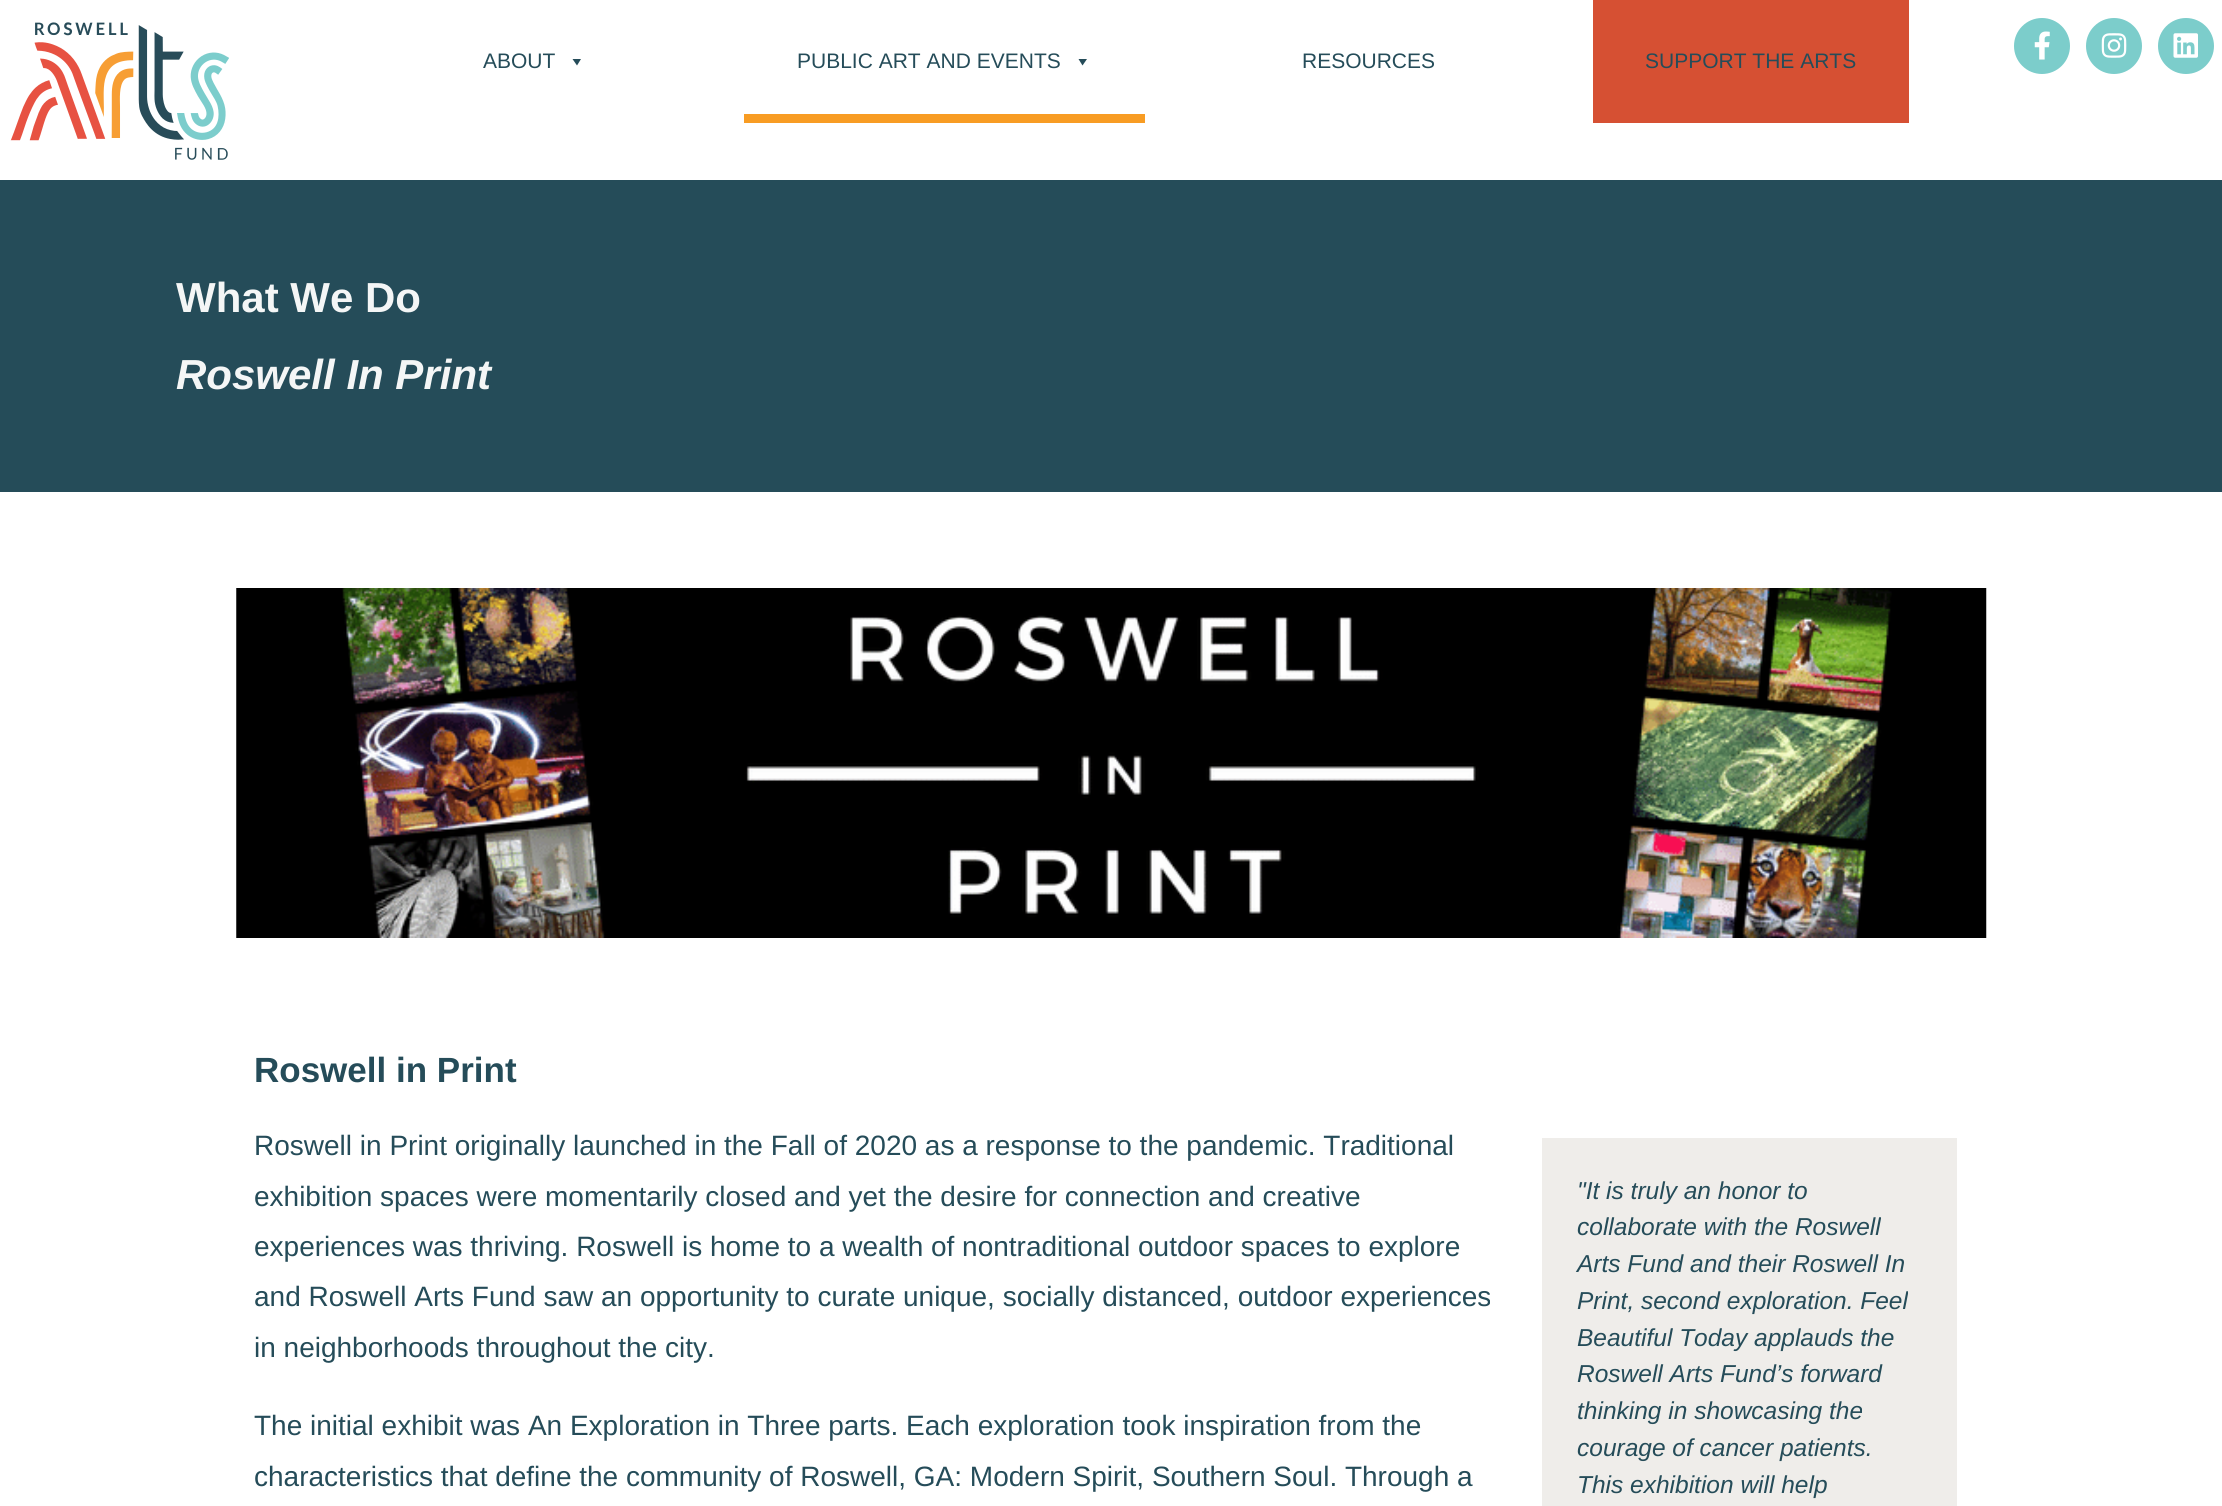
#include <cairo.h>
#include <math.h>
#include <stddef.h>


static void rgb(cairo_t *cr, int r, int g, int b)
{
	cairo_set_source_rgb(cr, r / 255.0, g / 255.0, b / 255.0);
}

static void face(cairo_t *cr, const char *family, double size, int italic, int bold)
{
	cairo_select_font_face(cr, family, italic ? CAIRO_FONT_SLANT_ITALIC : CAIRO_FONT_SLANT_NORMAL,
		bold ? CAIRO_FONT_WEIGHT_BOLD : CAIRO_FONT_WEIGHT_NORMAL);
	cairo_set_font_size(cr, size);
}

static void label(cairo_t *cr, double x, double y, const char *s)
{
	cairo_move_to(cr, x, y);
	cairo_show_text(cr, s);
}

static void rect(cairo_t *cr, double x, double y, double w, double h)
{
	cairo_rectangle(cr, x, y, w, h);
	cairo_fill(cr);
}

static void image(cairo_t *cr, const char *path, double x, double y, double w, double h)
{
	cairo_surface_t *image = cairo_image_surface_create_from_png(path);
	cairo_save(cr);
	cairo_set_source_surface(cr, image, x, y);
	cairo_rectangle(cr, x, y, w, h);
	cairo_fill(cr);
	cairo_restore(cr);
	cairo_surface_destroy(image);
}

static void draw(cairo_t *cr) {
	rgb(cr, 255, 255, 255);
	cairo_paint(cr);
	image(cr, "image0.png", 10, 22, 219, 138);
	face(cr, "Liberation Sans", 21, 0, 0);
	rgb(cr, 37, 76, 89);
	label(cr, 483, 68, "ABOUT");
	cairo_new_path(cr);
	cairo_move_to(cr, 581, 59);
	cairo_line_to(cr, 577, 65.5);
	cairo_line_to(cr, 572.5, 59);
	cairo_close_path(cr);
	cairo_fill(cr);
	rgb(cr, 248, 156, 35);
	rect(cr, 744, 114, 401, 9);
	rgb(cr, 37, 76, 89);
	label(cr, 797, 68, "PUBLIC ART AND EVENTS");
	cairo_new_path(cr);
	cairo_move_to(cr, 1087, 59);
	cairo_line_to(cr, 1082.5, 65.5);
	cairo_line_to(cr, 1078.5, 59);
	cairo_close_path(cr);
	cairo_fill(cr);
	label(cr, 1302, 68, "RESOURCES");
	rgb(cr, 214, 80, 51);
	rect(cr, 1593, 0, 316, 123);
	rgb(cr, 37, 76, 89);
	label(cr, 1645, 68, "SUPPORT THE ARTS");
	rgb(cr, 124, 205, 203);
	cairo_new_path(cr);
	cairo_arc(cr, 2042, 46, 28, 0, 2 * M_PI);
	cairo_fill(cr);
	image(cr, "image1.png", 2034, 31, 16, 29);
	cairo_arc(cr, 2114, 46, 28, 0, 2 * M_PI);
	cairo_fill(cr);
	image(cr, "image2.png", 2101, 33, 26, 25);
	cairo_arc(cr, 2186, 46, 28, 0, 2 * M_PI);
	cairo_fill(cr);
	image(cr, "image3.png", 2173, 33, 25, 25);
	rgb(cr, 37, 76, 89);
	rect(cr, 0, 180, 2222, 312);
	face(cr, "Liberation Sans", 42, 0, 1);
	rgb(cr, 244, 246, 246);
	label(cr, 176, 312, "What We Do");
	face(cr, "Liberation Sans", 42, 1, 1);
	label(cr, 176, 389, "Roswell In Print");
	image(cr, "image4.png", 236, 588, 1751, 350);
	face(cr, "Liberation Sans", 35, 0, 1);
	rgb(cr, 37, 76, 89);
	label(cr, 254, 1082, "Roswell in Print");
	face(cr, "Liberation Sans", 28, 0, 0);
	label(cr, 254, 1155, "Roswell in Print originally launched in the Fall of 2020 as a response to the pandemic. Traditional");
	label(cr, 254, 1206, "exhibition spaces were momentarily closed and yet the desire for connection and creative");
	label(cr, 254, 1256, "experiences was thriving. Roswell is home to a wealth of nontraditional outdoor spaces to explore");
	label(cr, 254, 1306, "and Roswell Arts Fund saw an opportunity to curate unique, socially distanced, outdoor experiences");
	label(cr, 254, 1357, "in neighborhoods throughout the city.");
	label(cr, 254, 1435, "The initial exhibit was An Exploration in Three parts. Each exploration took inspiration from the");
	label(cr, 254, 1486, "characteristics that define the community of Roswell, GA: Modern Spirit, Southern Soul. Through a");
	rgb(cr, 239, 237, 234);
	rect(cr, 1542, 1138, 415, 368);
	face(cr, "Liberation Sans", 24.5, 1, 0);
	rgb(cr, 37, 76, 89);
	label(cr, 1577, 1199, "\"It is truly an honor to");
	label(cr, 1577, 1235, "collaborate with the Roswell");
	label(cr, 1577, 1272, "Arts Fund and their Roswell In");
	label(cr, 1577, 1309, "Print, second exploration. Feel");
	label(cr, 1577, 1346, "Beautiful Today applauds the");
	label(cr, 1577, 1382, "Roswell Arts Fund’s forward");
	label(cr, 1577, 1419, "thinking in showcasing the");
	label(cr, 1577, 1456, "courage of cancer patients.");
	label(cr, 1577, 1493, "This exhibition will help");
}

int main(void) {
	cairo_surface_t *surface = cairo_image_surface_create(CAIRO_FORMAT_RGB24, 2222, 1506);
	cairo_t *cr = cairo_create(surface);
	cairo_font_options_t *options = cairo_font_options_create();
	cairo_font_options_set_hint_metrics(options, CAIRO_HINT_METRICS_OFF);
	cairo_font_options_set_hint_style(options, CAIRO_HINT_STYLE_NONE);
	cairo_set_font_options(cr, options);
	cairo_set_miter_limit(cr, 4);
	draw(cr);
	cairo_surface_write_to_png(surface, "render.png");
	cairo_font_options_destroy(options);
	cairo_destroy(cr);
	cairo_surface_destroy(surface);
	return 0;
}
